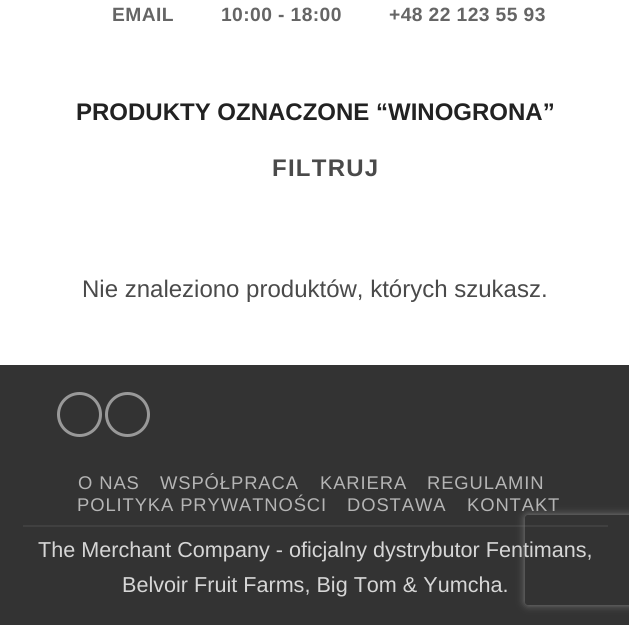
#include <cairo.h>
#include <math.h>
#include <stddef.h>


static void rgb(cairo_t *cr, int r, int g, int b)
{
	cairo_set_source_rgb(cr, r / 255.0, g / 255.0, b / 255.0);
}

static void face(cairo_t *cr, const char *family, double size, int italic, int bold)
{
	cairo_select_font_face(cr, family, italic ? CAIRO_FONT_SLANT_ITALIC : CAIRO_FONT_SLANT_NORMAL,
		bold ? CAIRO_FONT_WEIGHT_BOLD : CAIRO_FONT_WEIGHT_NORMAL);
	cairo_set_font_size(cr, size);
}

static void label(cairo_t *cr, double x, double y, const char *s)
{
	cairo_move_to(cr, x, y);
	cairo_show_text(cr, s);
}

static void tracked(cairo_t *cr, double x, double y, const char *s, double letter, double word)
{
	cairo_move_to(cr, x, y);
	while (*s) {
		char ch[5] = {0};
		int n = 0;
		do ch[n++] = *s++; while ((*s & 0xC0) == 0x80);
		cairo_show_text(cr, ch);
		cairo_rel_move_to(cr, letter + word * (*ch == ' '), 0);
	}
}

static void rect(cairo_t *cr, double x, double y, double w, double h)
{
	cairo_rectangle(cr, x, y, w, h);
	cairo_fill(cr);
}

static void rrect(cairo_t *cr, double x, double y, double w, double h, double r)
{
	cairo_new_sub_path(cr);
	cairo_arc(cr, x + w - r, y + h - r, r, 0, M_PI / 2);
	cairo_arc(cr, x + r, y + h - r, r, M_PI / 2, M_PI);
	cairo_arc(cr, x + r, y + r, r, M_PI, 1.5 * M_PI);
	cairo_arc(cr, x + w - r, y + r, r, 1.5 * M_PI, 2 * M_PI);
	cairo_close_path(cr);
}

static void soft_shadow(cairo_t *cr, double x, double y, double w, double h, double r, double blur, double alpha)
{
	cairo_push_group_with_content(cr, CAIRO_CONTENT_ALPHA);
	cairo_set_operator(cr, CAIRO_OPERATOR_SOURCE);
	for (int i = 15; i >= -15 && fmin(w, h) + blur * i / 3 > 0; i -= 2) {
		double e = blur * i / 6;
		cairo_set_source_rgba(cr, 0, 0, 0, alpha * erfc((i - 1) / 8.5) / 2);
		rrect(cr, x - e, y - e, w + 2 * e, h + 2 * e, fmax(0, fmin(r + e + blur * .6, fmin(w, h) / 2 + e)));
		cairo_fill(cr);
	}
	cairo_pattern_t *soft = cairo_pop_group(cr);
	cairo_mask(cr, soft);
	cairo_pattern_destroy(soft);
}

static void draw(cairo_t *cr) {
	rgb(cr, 255, 255, 255);
	cairo_paint(cr);
	face(cr, "Liberation Sans", 19.25, 0, 1);
	rgb(cr, 101, 101, 101);
	tracked(cr, 112, 21, "EMAIL", 0.4, 0);
	tracked(cr, 221, 21, "10:00 - 18:00", 0.4, 0);
	tracked(cr, 389, 21, "+48 22 123 55 93", 0.4, 0);
	face(cr, "Liberation Sans", 24, 0, 1);
	rgb(cr, 34, 34, 34);
	label(cr, 76, 120, "PRODUKTY OZNACZONE “WINOGRONA”");
	rgb(cr, 74, 74, 74);
	tracked(cr, 272, 176, "FILTRUJ", 1.25, 0);
	face(cr, "Liberation Sans", 24, 0, 0);
	label(cr, 82, 297, "Nie znaleziono produktów, których szukasz.");
	rgb(cr, 51, 51, 51);
	rect(cr, 0, 365, 629, 260);
	cairo_new_path(cr);
	cairo_arc(cr, 79.5, 414.5, 21, 0, 2 * M_PI);
	rgb(cr, 153, 153, 153);
	cairo_set_line_width(cr, 3);
	cairo_stroke(cr);
	cairo_arc(cr, 127.5, 414.5, 21, 0, 2 * M_PI);
	cairo_stroke(cr);
	rgb(cr, 64, 64, 64);
	rect(cr, 23, 525, 585, 2);
	face(cr, "Liberation Sans", 18.4, 0, 0);
	rgb(cr, 181, 181, 181);
	tracked(cr, 78, 489, "O NAS", 0.9, 0);
	tracked(cr, 160, 489, "WSPÓŁPRACA", 0.9, 0);
	tracked(cr, 320, 489, "KARIERA", 0.9, 0);
	tracked(cr, 427, 489, "REGULAMIN", 0.9, 0);
	tracked(cr, 77, 511, "POLITYKA PRYWATNOŚCI", 0.9, 0);
	tracked(cr, 347, 511, "DOSTAWA", 0.9, 0);
	tracked(cr, 467, 511, "KONTAKT", 0.9, 0);
	face(cr, "Liberation Sans", 21.6, 0, 0);
	rgb(cr, 214, 214, 214);
	label(cr, 38, 557, "The Merchant Company - oficjalny dystrybutor Fentimans,");
	label(cr, 122, 592, "Belvoir Fruit Farms, Big Tom & Yumcha.");
	cairo_save(cr);
	cairo_set_fill_rule(cr, CAIRO_FILL_RULE_EVEN_ODD);
	cairo_new_path(cr);
	cairo_move_to(cr, 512, 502);
	cairo_line_to(cr, 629, 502);
	cairo_line_to(cr, 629, 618);
	cairo_line_to(cr, 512, 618);
	cairo_close_path(cr);
	cairo_move_to(cr, 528, 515);
	cairo_line_to(cr, 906, 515);
	cairo_curve_to(cr, 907.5, 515, 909, 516.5, 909, 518);
	cairo_line_to(cr, 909, 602);
	cairo_curve_to(cr, 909, 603.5, 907.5, 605, 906, 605);
	cairo_line_to(cr, 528, 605);
	cairo_curve_to(cr, 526.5, 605, 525, 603.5, 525, 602);
	cairo_line_to(cr, 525, 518);
	cairo_curve_to(cr, 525, 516.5, 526.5, 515, 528, 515);
	cairo_close_path(cr);
	cairo_clip(cr);
	rgb(cr, 128, 128, 128);
	soft_shadow(cr, 525, 515, 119, 90, 3, 4, 1);
	cairo_restore(cr);
}

int main(void) {
	cairo_surface_t *surface = cairo_image_surface_create(CAIRO_FORMAT_RGB24, 629, 625);
	cairo_t *cr = cairo_create(surface);
	cairo_font_options_t *options = cairo_font_options_create();
	cairo_font_options_set_hint_metrics(options, CAIRO_HINT_METRICS_OFF);
	cairo_font_options_set_hint_style(options, CAIRO_HINT_STYLE_NONE);
	cairo_set_font_options(cr, options);
	cairo_set_miter_limit(cr, 4);
	draw(cr);
	cairo_surface_write_to_png(surface, "render.png");
	cairo_font_options_destroy(options);
	cairo_destroy(cr);
	cairo_surface_destroy(surface);
	return 0;
}
